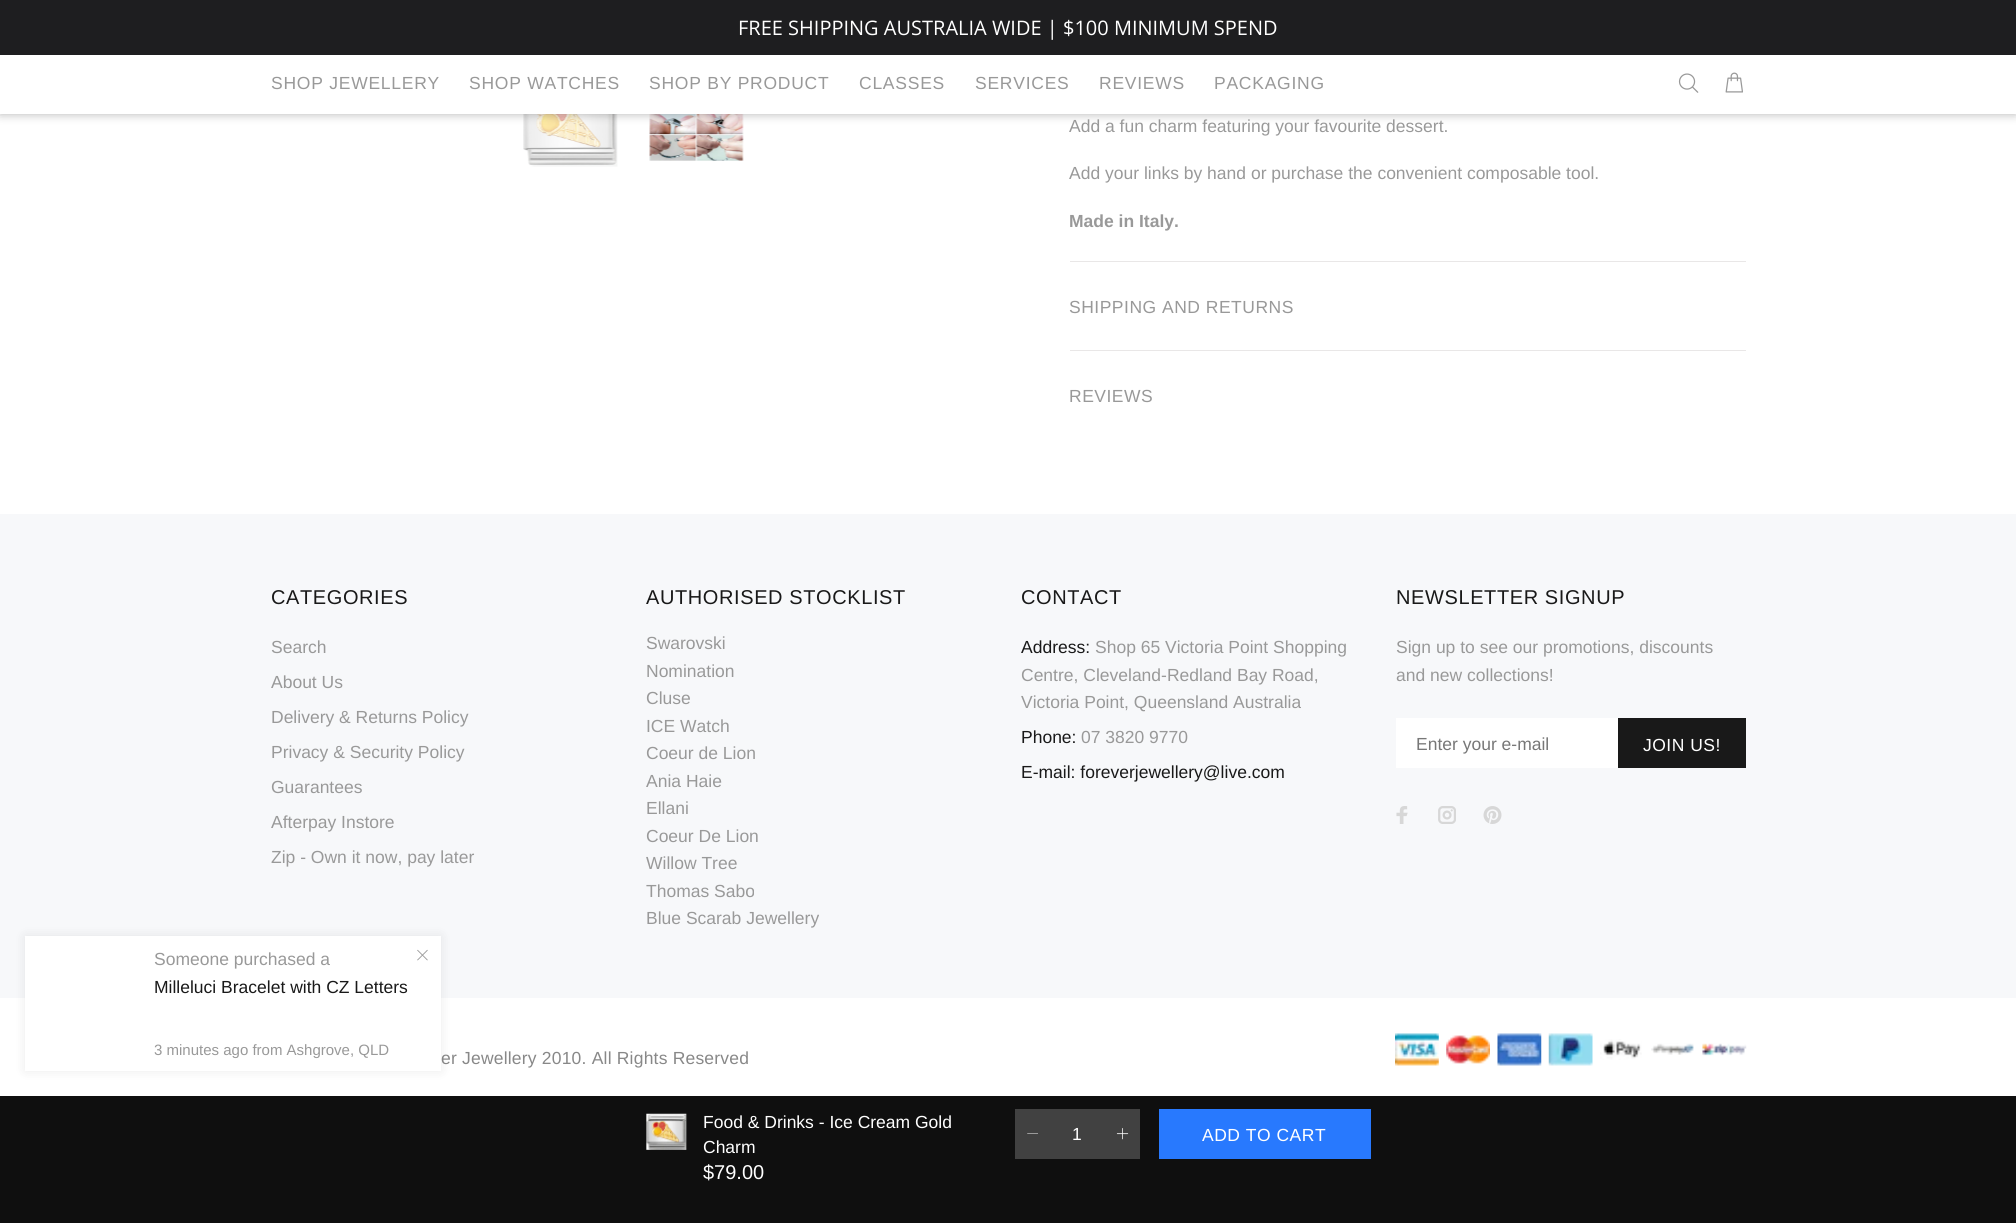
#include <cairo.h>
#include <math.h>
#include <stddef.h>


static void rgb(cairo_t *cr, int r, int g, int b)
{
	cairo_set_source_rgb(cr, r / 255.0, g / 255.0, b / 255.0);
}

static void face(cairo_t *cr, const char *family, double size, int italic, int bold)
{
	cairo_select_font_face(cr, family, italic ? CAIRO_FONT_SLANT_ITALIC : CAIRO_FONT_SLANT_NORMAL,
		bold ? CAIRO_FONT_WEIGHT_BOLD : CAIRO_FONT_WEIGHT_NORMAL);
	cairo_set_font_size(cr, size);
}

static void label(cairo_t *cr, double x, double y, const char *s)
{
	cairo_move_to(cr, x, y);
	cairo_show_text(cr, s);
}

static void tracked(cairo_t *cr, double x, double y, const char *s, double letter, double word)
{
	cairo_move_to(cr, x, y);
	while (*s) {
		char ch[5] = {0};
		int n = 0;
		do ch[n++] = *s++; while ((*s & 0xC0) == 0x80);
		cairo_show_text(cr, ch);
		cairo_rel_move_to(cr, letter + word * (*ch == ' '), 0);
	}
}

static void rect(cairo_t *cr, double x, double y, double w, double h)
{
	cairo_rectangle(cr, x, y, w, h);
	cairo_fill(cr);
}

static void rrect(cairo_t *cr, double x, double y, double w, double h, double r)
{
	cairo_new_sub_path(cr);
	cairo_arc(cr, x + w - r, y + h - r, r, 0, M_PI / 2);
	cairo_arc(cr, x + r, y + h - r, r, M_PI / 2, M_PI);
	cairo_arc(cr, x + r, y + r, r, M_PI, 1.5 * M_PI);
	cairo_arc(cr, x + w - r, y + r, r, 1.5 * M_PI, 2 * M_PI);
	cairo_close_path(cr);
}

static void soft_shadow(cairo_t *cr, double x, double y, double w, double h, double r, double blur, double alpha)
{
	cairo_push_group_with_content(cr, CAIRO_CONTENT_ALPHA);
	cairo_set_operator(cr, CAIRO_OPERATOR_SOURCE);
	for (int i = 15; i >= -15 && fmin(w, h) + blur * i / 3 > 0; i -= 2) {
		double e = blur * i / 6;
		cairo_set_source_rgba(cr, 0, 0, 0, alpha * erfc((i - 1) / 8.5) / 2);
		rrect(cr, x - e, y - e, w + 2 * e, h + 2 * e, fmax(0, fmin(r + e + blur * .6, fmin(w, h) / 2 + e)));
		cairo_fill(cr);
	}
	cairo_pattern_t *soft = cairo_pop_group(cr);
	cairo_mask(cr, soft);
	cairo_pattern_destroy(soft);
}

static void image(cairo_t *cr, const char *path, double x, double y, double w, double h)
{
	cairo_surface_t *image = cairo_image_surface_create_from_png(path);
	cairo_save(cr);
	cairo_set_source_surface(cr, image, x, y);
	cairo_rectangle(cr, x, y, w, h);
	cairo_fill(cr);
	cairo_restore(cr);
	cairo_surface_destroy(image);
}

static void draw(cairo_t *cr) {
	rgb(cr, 255, 255, 255);
	cairo_paint(cr);
	image(cr, "image2.png", 523, 114, 95, 53);
	image(cr, "image3.png", 649, 114, 95, 47);
	rgb(cr, 0, 0, 0);
	soft_shadow(cr, 0, 54, 2016, 60, 0, 5, 0.3);
	rgb(cr, 30, 30, 32);
	rect(cr, 0, 0, 2016, 55);
	face(cr, "Open Sans", 20, 0, 0);
	rgb(cr, 255, 255, 255);
	label(cr, 738, 35, "FREE SHIPPING AUSTRALIA WIDE | $100 MINIMUM SPEND");
	rect(cr, 0, 55, 2016, 59);
	face(cr, "Liberation Sans", 17.5, 0, 0);
	rgb(cr, 153, 153, 153);
	tracked(cr, 271, 89, "SHOP JEWELLERY", 0.75, 0);
	tracked(cr, 469, 89, "SHOP WATCHES", 0.75, 0);
	tracked(cr, 649, 89, "SHOP BY PRODUCT", 0.75, 0);
	tracked(cr, 859, 89, "CLASSES", 0.75, 0);
	tracked(cr, 975, 89, "SERVICES", 0.75, 0);
	tracked(cr, 1099, 89, "REVIEWS", 0.75, 0);
	tracked(cr, 1214, 89, "PACKAGING", 0.75, 0);
	image(cr, "image0.png", 1678, 73, 21, 20);
	image(cr, "image1.png", 1725, 72, 18, 21);
	rgb(cr, 233, 231, 231);
	rect(cr, 1070, 261, 676, 1);
	rgb(cr, 153, 153, 153);
	label(cr, 1069, 132, "Add a fun charm featuring your favourite dessert.");
	label(cr, 1069, 179, "Add your links by hand or purchase the convenient composable tool.");
	face(cr, "Liberation Sans", 17.5, 0, 1);
	label(cr, 1069, 227, "Made in Italy.");
	rgb(cr, 233, 231, 231);
	rect(cr, 1070, 350, 676, 1);
	face(cr, "Liberation Sans", 17.5, 0, 0);
	rgb(cr, 153, 153, 153);
	tracked(cr, 1069, 313, "SHIPPING AND RETURNS", 0.5, 0);
	tracked(cr, 1069, 402, "REVIEWS", 0.5, 0);
	rgb(cr, 15, 15, 15);
	rect(cr, 0, 1096, 2016, 127);
	image(cr, "image4.png", 646, 1113, 41, 37);
	rgb(cr, 255, 255, 255);
	label(cr, 703, 1128, "Food & Drinks - Ice Cream Gold");
	label(cr, 703, 1153, "Charm");
	face(cr, "Liberation Sans", 20, 0, 0);
	label(cr, 703, 1179, "$79.00");
	rgb(cr, 65, 65, 65);
	rect(cr, 1015, 1109, 125, 50);
	rgb(cr, 255, 255, 255);
	cairo_new_path(cr);
	cairo_move_to(cr, 1038, 1133.5);
	cairo_line_to(cr, 1038, 1134);
	cairo_line_to(cr, 1027, 1134);
	cairo_line_to(cr, 1027.5, 1133.5);
	cairo_close_path(cr);
	cairo_fill(cr);
	face(cr, "Liberation Sans", 17.5, 0, 0);
	label(cr, 1072, 1140, "1");
	image(cr, "image5.png", 1116, 1128, 13, 12);
	rgb(cr, 40, 121, 254);
	rect(cr, 1159, 1109, 212, 50);
	rgb(cr, 255, 255, 255);
	tracked(cr, 1202, 1141, "ADD TO CART", 0.5, 0);
	rgb(cr, 247, 248, 250);
	rect(cr, 0, 514, 2016, 484);
	face(cr, "Liberation Sans", 20, 0, 0);
	rgb(cr, 25, 25, 25);
	tracked(cr, 271, 604, "CATEGORIES", 0.6, 0);
	face(cr, "Liberation Sans", 17.5, 0, 0);
	rgb(cr, 153, 153, 153);
	label(cr, 271, 653, "Search");
	label(cr, 271, 688, "About Us");
	label(cr, 271, 723, "Delivery & Returns Policy");
	label(cr, 271, 758, "Privacy & Security Policy");
	label(cr, 271, 793, "Guarantees");
	label(cr, 271, 828, "Afterpay Instore");
	label(cr, 271, 863, "Zip - Own it now, pay later");
	face(cr, "Liberation Sans", 20, 0, 0);
	rgb(cr, 25, 25, 25);
	tracked(cr, 646, 604, "AUTHORISED STOCKLIST", 0.6, 0);
	face(cr, "Liberation Sans", 17.5, 0, 0);
	rgb(cr, 153, 153, 153);
	label(cr, 646, 649, "Swarovski");
	label(cr, 646, 677, "Nomination");
	label(cr, 646, 704, "Cluse");
	label(cr, 646, 732, "ICE Watch");
	label(cr, 646, 759, "Coeur de Lion");
	label(cr, 646, 787, "Ania Haie");
	label(cr, 646, 814, "Ellani");
	label(cr, 646, 842, "Coeur De Lion");
	label(cr, 646, 869, "Willow Tree");
	label(cr, 646, 897, "Thomas Sabo");
	label(cr, 646, 924, "Blue Scarab Jewellery");
	face(cr, "Liberation Sans", 20, 0, 0);
	rgb(cr, 25, 25, 25);
	tracked(cr, 1021, 604, "CONTACT", 0.6, 0);
	face(cr, "Liberation Sans", 17.5, 0, 0);
	label(cr, 1021, 653, "Address:");
	rgb(cr, 153, 153, 153);
	label(cr, 1095, 653, "Shop 65 Victoria Point Shopping");
	label(cr, 1021, 681, "Centre, Cleveland-Redland Bay Road,");
	label(cr, 1021, 708, "Victoria Point, Queensland Australia");
	rgb(cr, 25, 25, 25);
	label(cr, 1021, 743, "Phone:");
	rgb(cr, 153, 153, 153);
	label(cr, 1081, 743, "07 3820 9770");
	rgb(cr, 25, 25, 25);
	label(cr, 1021, 778, "E-mail: foreverjewellery@live.com");
	face(cr, "Liberation Sans", 20, 0, 0);
	tracked(cr, 1396, 604, "NEWSLETTER SIGNUP", 0.6, 0);
	face(cr, "Liberation Sans", 17.5, 0, 0);
	rgb(cr, 153, 153, 153);
	label(cr, 1396, 653, "Sign up to see our promotions, discounts");
	label(cr, 1396, 681, "and new collections!");
	rgb(cr, 255, 255, 255);
	rect(cr, 1396, 718, 222, 50);
	rgb(cr, 119, 119, 119);
	label(cr, 1416, 750, "Enter your e-mail");
	rgb(cr, 25, 25, 25);
	rect(cr, 1618, 718, 128, 50);
	rgb(cr, 255, 255, 255);
	tracked(cr, 1643, 751, "JOIN US!", 0.5, 0);
	image(cr, "image6.png", 1396, 806, 12, 18);
	image(cr, "image7.png", 1438, 806, 18, 18);
	image(cr, "image8.png", 1483, 806, 19, 18);
	rgb(cr, 136, 136, 136);
	tracked(cr, 441, 1064, "er Jewellery 2010. All Rights Reserved", 0.2, 0);
	image(cr, "image9.png", 1395, 1033, 44, 33);
	image(cr, "image10.png", 1446, 1035, 44, 29);
	image(cr, "image11.png", 1497, 1033, 45, 33);
	image(cr, "image12.png", 1548, 1033, 45, 33);
	image(cr, "image13.png", 1600, 1039, 42, 21);
	image(cr, "image14.png", 1651, 1043, 43, 12);
	image(cr, "image15.png", 1702, 1043, 45, 13);
	rgb(cr, 0, 0, 0);
	soft_shadow(cr, 25, 936, 416, 135, 0, 6, 0.08);
	rgb(cr, 255, 255, 255);
	rect(cr, 25, 936, 416, 135);
	rgb(cr, 153, 153, 153);
	label(cr, 154, 965, "Someone purchased a");
	rgb(cr, 25, 25, 25);
	label(cr, 154, 993, "Milleluci Bracelet with CZ Letters");
	face(cr, "Liberation Sans", 15, 0, 0);
	rgb(cr, 153, 153, 153);
	label(cr, 154, 1055, "3 minutes ago from Ashgrove, QLD");
	image(cr, "image16.png", 417, 949, 11, 12);
}

int main(void) {
	cairo_surface_t *surface = cairo_image_surface_create(CAIRO_FORMAT_RGB24, 2016, 1223);
	cairo_t *cr = cairo_create(surface);
	cairo_font_options_t *options = cairo_font_options_create();
	cairo_font_options_set_hint_metrics(options, CAIRO_HINT_METRICS_OFF);
	cairo_font_options_set_hint_style(options, CAIRO_HINT_STYLE_NONE);
	cairo_set_font_options(cr, options);
	cairo_set_miter_limit(cr, 4);
	draw(cr);
	cairo_surface_write_to_png(surface, "render.png");
	cairo_font_options_destroy(options);
	cairo_destroy(cr);
	cairo_surface_destroy(surface);
	return 0;
}
